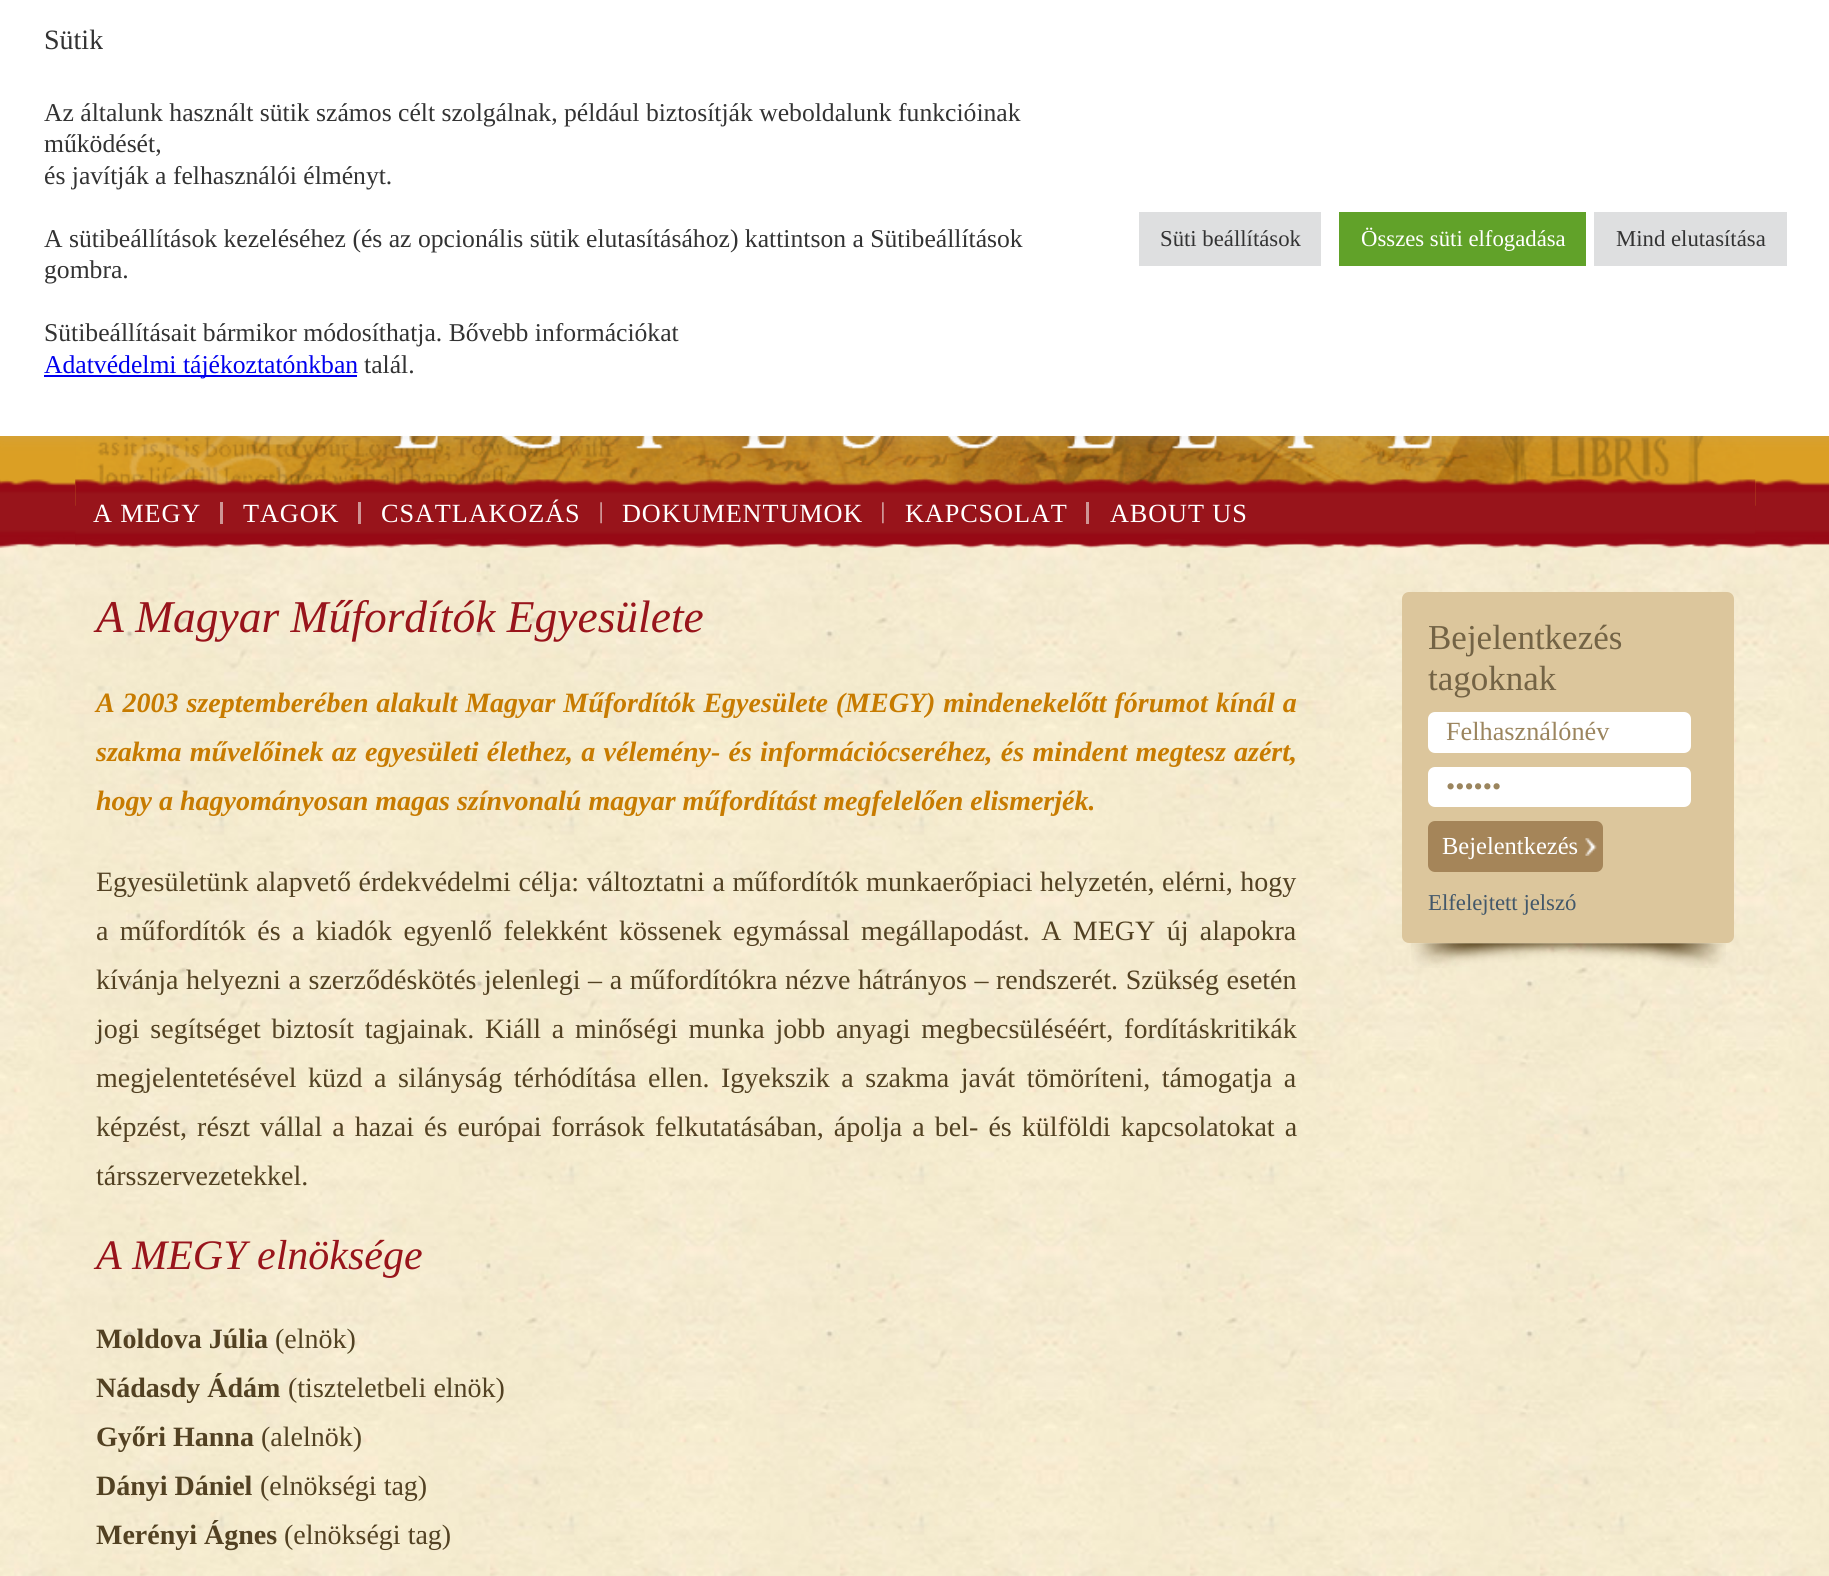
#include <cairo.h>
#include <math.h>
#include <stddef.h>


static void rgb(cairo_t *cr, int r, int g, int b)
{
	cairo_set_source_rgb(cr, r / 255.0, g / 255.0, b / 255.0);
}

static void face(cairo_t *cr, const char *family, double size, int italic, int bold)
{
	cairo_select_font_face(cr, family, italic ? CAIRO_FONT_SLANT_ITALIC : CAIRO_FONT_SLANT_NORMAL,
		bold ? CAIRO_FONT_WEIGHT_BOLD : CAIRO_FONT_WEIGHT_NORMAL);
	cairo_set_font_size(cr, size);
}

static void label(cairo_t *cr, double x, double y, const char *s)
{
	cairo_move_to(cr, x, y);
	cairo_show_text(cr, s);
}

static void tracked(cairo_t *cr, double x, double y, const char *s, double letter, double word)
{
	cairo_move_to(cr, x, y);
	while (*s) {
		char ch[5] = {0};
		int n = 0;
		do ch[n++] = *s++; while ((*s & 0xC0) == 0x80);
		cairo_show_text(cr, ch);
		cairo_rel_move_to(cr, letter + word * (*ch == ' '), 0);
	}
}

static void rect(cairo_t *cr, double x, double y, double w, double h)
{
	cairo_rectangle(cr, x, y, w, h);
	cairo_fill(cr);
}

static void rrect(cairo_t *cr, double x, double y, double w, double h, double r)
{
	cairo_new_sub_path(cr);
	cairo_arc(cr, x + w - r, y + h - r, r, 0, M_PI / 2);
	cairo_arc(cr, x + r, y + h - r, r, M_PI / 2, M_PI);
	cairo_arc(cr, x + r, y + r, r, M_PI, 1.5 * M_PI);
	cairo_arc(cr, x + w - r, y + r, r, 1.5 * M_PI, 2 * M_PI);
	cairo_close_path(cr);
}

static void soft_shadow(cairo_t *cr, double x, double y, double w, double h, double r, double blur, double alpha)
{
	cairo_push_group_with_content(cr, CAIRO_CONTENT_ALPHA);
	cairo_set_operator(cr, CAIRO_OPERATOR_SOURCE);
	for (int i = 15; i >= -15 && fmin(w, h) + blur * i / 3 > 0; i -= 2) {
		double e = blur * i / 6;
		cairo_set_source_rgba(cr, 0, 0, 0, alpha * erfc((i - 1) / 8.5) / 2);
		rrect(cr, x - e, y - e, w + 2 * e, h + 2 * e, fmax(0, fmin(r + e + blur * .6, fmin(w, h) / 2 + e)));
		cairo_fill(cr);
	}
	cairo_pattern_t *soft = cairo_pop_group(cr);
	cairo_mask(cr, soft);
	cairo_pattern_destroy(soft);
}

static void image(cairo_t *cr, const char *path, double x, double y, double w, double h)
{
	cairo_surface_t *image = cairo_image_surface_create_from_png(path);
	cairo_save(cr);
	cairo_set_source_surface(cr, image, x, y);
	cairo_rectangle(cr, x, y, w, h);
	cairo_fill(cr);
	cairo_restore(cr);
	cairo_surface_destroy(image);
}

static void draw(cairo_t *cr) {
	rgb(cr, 255, 255, 255);
	cairo_paint(cr);
	image(cr, "image0.png", 0, 543, 1829, 1033);
	image(cr, "image1.png", 0, 436, 1829, 112);
	image(cr, "image2.png", 75, 436, 1681, 70);
	rgb(cr, 172, 171, 171);
	soft_shadow(cr, 0, -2, 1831, 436, 0, 9, 0.3);
	rgb(cr, 255, 255, 255);
	rect(cr, 0, 0, 1829, 436);
	face(cr, "Liberation Serif", 28, 0, 0);
	rgb(cr, 51, 51, 51);
	label(cr, 44, 49, "Sütik");
	face(cr, "Liberation Serif", 25.65, 0, 0);
	label(cr, 44, 121, "Az általunk használt sütik számos célt szolgálnak, például biztosítják weboldalunk funkcióinak");
	label(cr, 44, 152, "működését,");
	label(cr, 44, 184, "és javítják a felhasználói élményt.");
	label(cr, 44, 247, "A sütibeállítások kezeléséhez (és az opcionális sütik elutasításához) kattintson a Sütibeállítások");
	label(cr, 44, 278, "gombra.");
	label(cr, 44, 341, "Sütibeállításait bármikor módosíthatja. Bővebb információkat");
	rgb(cr, 0, 0, 238);
	rect(cr, 44, 375, 313, 2);
	label(cr, 44, 373, "Adatvédelmi tájékoztatónkban");
	rgb(cr, 51, 51, 51);
	label(cr, 364, 373, "talál.");
	rgb(cr, 222, 223, 224);
	rect(cr, 1139, 212, 182, 54);
	face(cr, "Liberation Serif", 22.75, 0, 0);
	rgb(cr, 51, 51, 51);
	label(cr, 1160, 246, "Süti beállítások");
	rgb(cr, 97, 162, 41);
	rect(cr, 1339, 212, 247, 54);
	rgb(cr, 255, 255, 255);
	label(cr, 1361, 246, "Összes süti elfogadása");
	rgb(cr, 222, 223, 224);
	rect(cr, 1594, 212, 193, 54);
	rgb(cr, 51, 51, 51);
	label(cr, 1616, 246, "Mind elutasítása");
	image(cr, "image3.png", 75, 477, 1681, 71);
	rgb(cr, 206, 149, 149);
	rect(cr, 220, 502, 3, 22);
	face(cr, "Liberation Serif", 26.25, 0, 0);
	rgb(cr, 255, 255, 255);
	tracked(cr, 93, 522, "A MEGY", 0.9, 0);
	rgb(cr, 206, 149, 149);
	rect(cr, 358, 502, 3, 22);
	rgb(cr, 255, 255, 255);
	tracked(cr, 243, 522, "TAGOK", 0.9, 0);
	image(cr, "image4.png", 600, 502, 2, 22);
	tracked(cr, 381, 522, "CSATLAKOZÁS", 0.9, 0);
	image(cr, "image5.png", 882, 502, 2, 22);
	tracked(cr, 622, 522, "DOKUMENTUMOK", 0.9, 0);
	rgb(cr, 206, 149, 149);
	rect(cr, 1086, 502, 3, 22);
	rgb(cr, 255, 255, 255);
	tracked(cr, 905, 522, "KAPCSOLAT", 0.9, 0);
	tracked(cr, 1110, 522, "ABOUT US", 0.9, 0);
	face(cr, "Liberation Serif", 45.5, 1, 0);
	rgb(cr, 152, 20, 27);
	label(cr, 96, 632, "A Magyar Műfordítók Egyesülete");
	face(cr, "Liberation Serif", 28, 1, 1);
	rgb(cr, 199, 123, 0);
	tracked(cr, 96, 712, "A 2003 szeptemberében alakult Magyar Műfordítók Egyesülete (MEGY) mindenekelőtt fórumot kínál a", 0, 0.9);
	tracked(cr, 96, 761, "szakma művelőinek az egyesületi élethez, a vélemény- és információcseréhez, és mindent megtesz azért,", 0, 1.25);
	label(cr, 96, 810, "hogy a hagyományosan magas színvonalú magyar műfordítást megfelelően elismerjék.");
	face(cr, "Liberation Serif", 28, 0, 0);
	rgb(cr, 82, 65, 34);
	tracked(cr, 96, 891, "Egyesületünk alapvető érdekvédelmi célja: változtatni a műfordítók munkaerőpiaci helyzetén, elérni, hogy", 0, 0.6);
	tracked(cr, 96, 940, "a műfordítók és a kiadók egyenlő felekként kössenek egymással megállapodást. A MEGY új alapokra", 0, 4.4);
	tracked(cr, 96, 989, "kívánja helyezni a szerződéskötés jelenlegi – a műfordítókra nézve hátrányos – rendszerét. Szükség esetén", 0, 0.6);
	tracked(cr, 96, 1038, "jogi segítséget biztosít tagjainak. Kiáll a minőségi munka jobb anyagi megbecsüléséért, fordításkritikák", 0, 3.75);
	tracked(cr, 96, 1087, "megjelentetésével küzd a silányság térhódítása ellen. Igyekszik a szakma javát tömöríteni, támogatja a", 0, 4.5);
	tracked(cr, 96, 1136, "képzést, részt vállal a hazai és európai források felkutatásában, ápolja a bel- és külföldi kapcsolatokat a", 0, 3.1);
	label(cr, 96, 1185, "társszervezetekkel.");
	face(cr, "Liberation Serif", 42, 1, 0);
	rgb(cr, 152, 20, 27);
	label(cr, 96, 1269, "A MEGY elnöksége");
	face(cr, "Liberation Serif", 28, 0, 1);
	rgb(cr, 82, 65, 34);
	label(cr, 96, 1348, "Moldova Júlia");
	face(cr, "Liberation Serif", 28, 0, 0);
	label(cr, 275, 1348, "(elnök)");
	face(cr, "Liberation Serif", 28, 0, 1);
	label(cr, 96, 1397, "Nádasdy Ádám");
	face(cr, "Liberation Serif", 28, 0, 0);
	label(cr, 288, 1397, "(tiszteletbeli elnök)");
	face(cr, "Liberation Serif", 28, 0, 1);
	label(cr, 96, 1446, "Győri Hanna");
	face(cr, "Liberation Serif", 28, 0, 0);
	label(cr, 261, 1446, "(alelnök)");
	face(cr, "Liberation Serif", 28, 0, 1);
	label(cr, 96, 1495, "Dányi Dániel");
	face(cr, "Liberation Serif", 28, 0, 0);
	label(cr, 260, 1495, "(elnökségi tag)");
	face(cr, "Liberation Serif", 28, 0, 1);
	label(cr, 96, 1544, "Merényi Ágnes");
	face(cr, "Liberation Serif", 28, 0, 0);
	label(cr, 284, 1544, "(elnökségi tag)");
	image(cr, "image6.png", 1411, 943, 315, 25);
	rgb(cr, 220, 198, 156);
	rrect(cr, 1402, 592, 332, 351, 7);
	cairo_fill(cr);
	face(cr, "Liberation Serif", 35, 0, 0);
	rgb(cr, 115, 99, 69);
	label(cr, 1428, 649, "Bejelentkezés");
	label(cr, 1428, 690, "tagoknak");
	rgb(cr, 255, 255, 255);
	rrect(cr, 1428, 712, 263, 41, 7);
	cairo_fill(cr);
	face(cr, "Liberation Serif", 26.25, 0, 0);
	rgb(cr, 155, 133, 94);
	label(cr, 1446, 740, "Felhasználónév");
	rgb(cr, 255, 255, 255);
	rrect(cr, 1428, 767, 263, 40, 7);
	cairo_fill(cr);
	rgb(cr, 155, 133, 94);
	label(cr, 1446, 795, "••••••");
	rgb(cr, 165, 133, 89);
	rrect(cr, 1428, 821, 175, 51, 7);
	cairo_fill(cr);
	face(cr, "Liberation Serif", 24.5, 0, 0);
	rgb(cr, 255, 255, 255);
	label(cr, 1442, 854, "Bejelentkezés");
	image(cr, "image7.png", 1585, 838, 12, 18);
	face(cr, "Liberation Serif", 22.75, 0, 0);
	rgb(cr, 66, 87, 106);
	label(cr, 1428, 910, "Elfelejtett jelszó");
}

int main(void) {
	cairo_surface_t *surface = cairo_image_surface_create(CAIRO_FORMAT_RGB24, 1829, 1576);
	cairo_t *cr = cairo_create(surface);
	cairo_font_options_t *options = cairo_font_options_create();
	cairo_font_options_set_hint_metrics(options, CAIRO_HINT_METRICS_OFF);
	cairo_font_options_set_hint_style(options, CAIRO_HINT_STYLE_NONE);
	cairo_set_font_options(cr, options);
	cairo_set_miter_limit(cr, 4);
	draw(cr);
	cairo_surface_write_to_png(surface, "render.png");
	cairo_font_options_destroy(options);
	cairo_destroy(cr);
	cairo_surface_destroy(surface);
	return 0;
}
